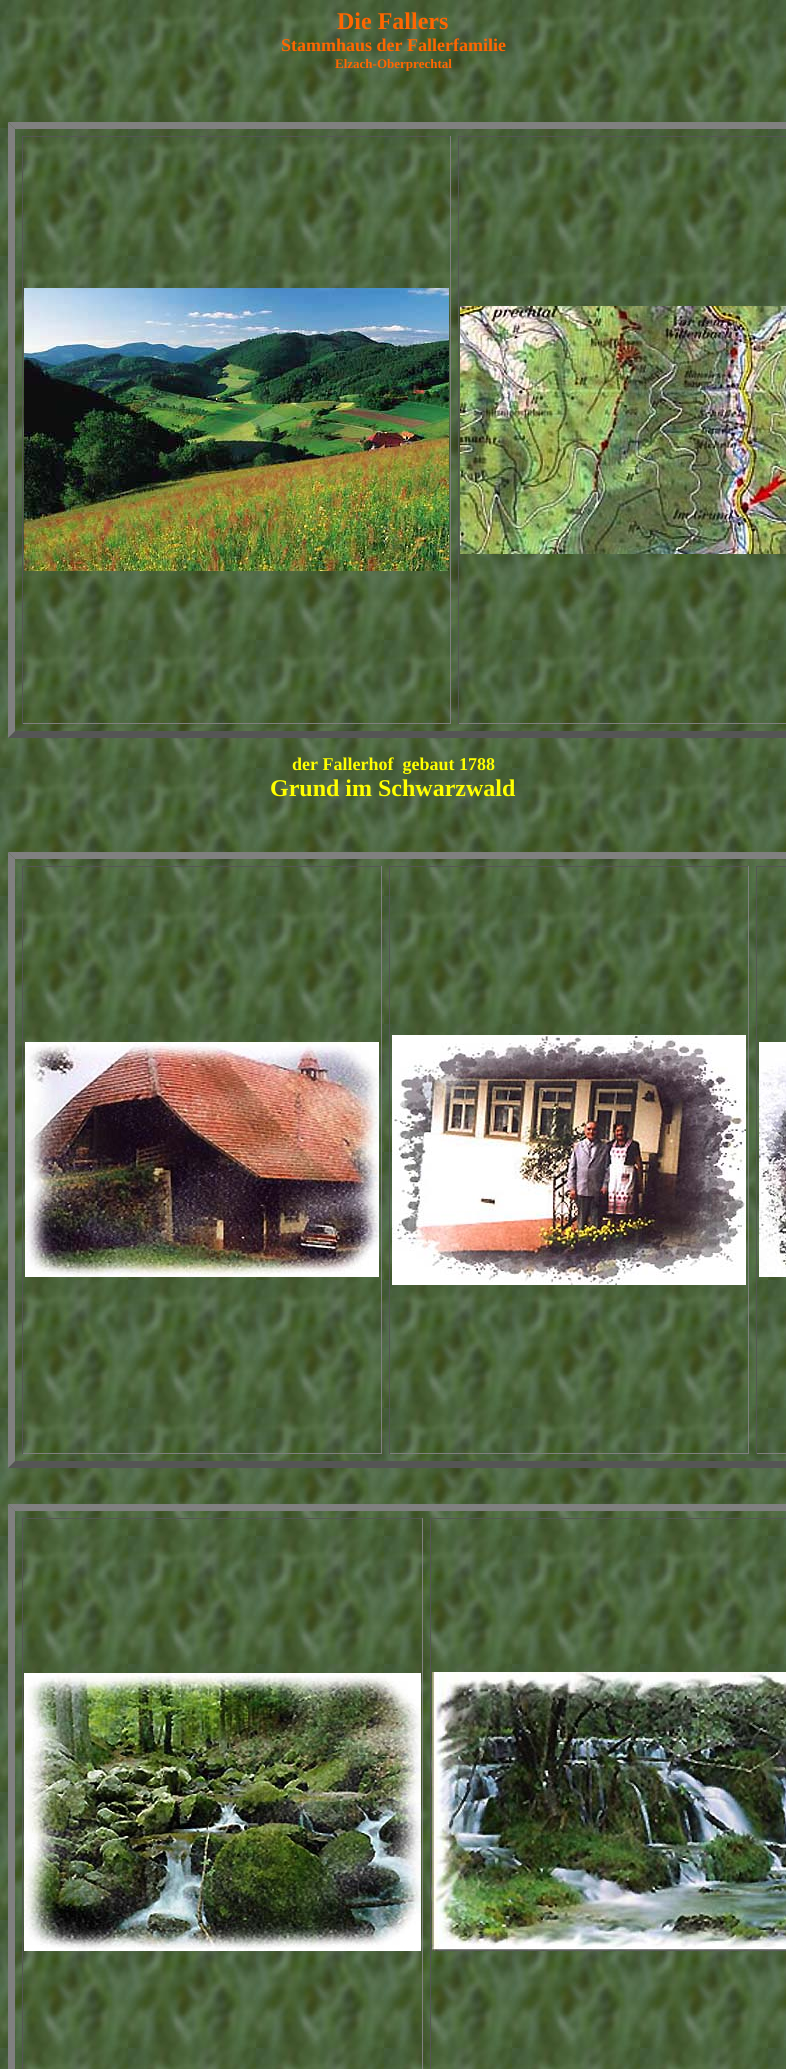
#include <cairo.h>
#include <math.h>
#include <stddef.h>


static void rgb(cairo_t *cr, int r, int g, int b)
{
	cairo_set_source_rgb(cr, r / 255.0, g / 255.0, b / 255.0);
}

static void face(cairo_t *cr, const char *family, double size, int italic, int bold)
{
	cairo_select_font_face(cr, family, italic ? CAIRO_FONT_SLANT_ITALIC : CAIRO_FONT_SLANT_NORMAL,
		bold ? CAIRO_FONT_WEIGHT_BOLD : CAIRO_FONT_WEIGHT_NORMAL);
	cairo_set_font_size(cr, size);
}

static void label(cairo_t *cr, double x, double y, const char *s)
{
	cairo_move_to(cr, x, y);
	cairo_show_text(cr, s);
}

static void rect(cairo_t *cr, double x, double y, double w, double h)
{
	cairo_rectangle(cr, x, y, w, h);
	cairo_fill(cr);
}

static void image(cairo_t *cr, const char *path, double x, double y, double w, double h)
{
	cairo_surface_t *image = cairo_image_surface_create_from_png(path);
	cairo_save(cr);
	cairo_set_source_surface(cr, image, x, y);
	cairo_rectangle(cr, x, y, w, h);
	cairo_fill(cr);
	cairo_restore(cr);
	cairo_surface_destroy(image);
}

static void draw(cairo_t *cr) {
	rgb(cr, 255, 255, 255);
	cairo_paint(cr);
	image(cr, "image0.png", 0, 0, 786, 2069);
	face(cr, "Liberation Serif", 24, 0, 1);
	rgb(cr, 255, 102, 0);
	label(cr, 337, 29, "Die Fallers");
	face(cr, "Liberation Serif", 18, 0, 1);
	label(cr, 281, 51, "Stammhaus der Fallerfamilie");
	face(cr, "Liberation Serif", 13, 0, 1);
	label(cr, 335, 68, "Elzach-Oberprechtal");
	rgb(cr, 128, 128, 128);
	cairo_new_path(cr);
	cairo_move_to(cr, 8, 122);
	cairo_line_to(cr, 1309, 122);
	cairo_line_to(cr, 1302, 129);
	cairo_line_to(cr, 15, 129);
	cairo_close_path(cr);
	cairo_fill(cr);
	rgb(cr, 85, 85, 85);
	cairo_new_path(cr);
	cairo_move_to(cr, 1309, 738);
	cairo_line_to(cr, 8, 738);
	cairo_line_to(cr, 15, 731);
	cairo_line_to(cr, 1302, 731);
	cairo_close_path(cr);
	cairo_fill(cr);
	rgb(cr, 128, 128, 128);
	cairo_new_path(cr);
	cairo_move_to(cr, 8, 738);
	cairo_line_to(cr, 8, 122);
	cairo_line_to(cr, 15, 129);
	cairo_line_to(cr, 15, 731);
	cairo_close_path(cr);
	cairo_fill(cr);
	rgb(cr, 85, 85, 85);
	rect(cr, 22, 136, 429, 1);
	rgb(cr, 128, 128, 128);
	rect(cr, 450, 136, 1, 588);
	rect(cr, 22, 723, 429, 1);
	rgb(cr, 85, 85, 85);
	rect(cr, 22, 136, 1, 588);
	image(cr, "image1.png", 24, 288, 425, 283);
	rect(cr, 458, 136, 328, 1);
	rgb(cr, 128, 128, 128);
	rect(cr, 458, 723, 328, 1);
	rgb(cr, 85, 85, 85);
	rect(cr, 458, 136, 1, 588);
	image(cr, "image2.png", 460, 306, 326, 248);
	face(cr, "Liberation Serif", 18, 0, 1);
	rgb(cr, 255, 255, 0);
	label(cr, 292, 770, "der Fallerhof  gebaut 1788");
	face(cr, "Liberation Serif", 24, 0, 1);
	label(cr, 270, 796, "Grund im Schwarzwald");
	rgb(cr, 128, 128, 128);
	cairo_new_path(cr);
	cairo_move_to(cr, 8, 852);
	cairo_line_to(cr, 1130, 852);
	cairo_line_to(cr, 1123, 859);
	cairo_line_to(cr, 15, 859);
	cairo_close_path(cr);
	cairo_fill(cr);
	rgb(cr, 85, 85, 85);
	cairo_new_path(cr);
	cairo_move_to(cr, 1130, 1468);
	cairo_line_to(cr, 8, 1468);
	cairo_line_to(cr, 15, 1461);
	cairo_line_to(cr, 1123, 1461);
	cairo_close_path(cr);
	cairo_fill(cr);
	rgb(cr, 128, 128, 128);
	cairo_new_path(cr);
	cairo_move_to(cr, 8, 1468);
	cairo_line_to(cr, 8, 852);
	cairo_line_to(cr, 15, 859);
	cairo_line_to(cr, 15, 1461);
	cairo_close_path(cr);
	cairo_fill(cr);
	rgb(cr, 85, 85, 85);
	rect(cr, 22, 866, 360, 1);
	rgb(cr, 128, 128, 128);
	rect(cr, 381, 866, 1, 588);
	rect(cr, 22, 1453, 360, 1);
	rgb(cr, 85, 85, 85);
	rect(cr, 22, 866, 1, 588);
	image(cr, "image3.png", 25, 1042, 354, 235);
	rect(cr, 389, 866, 360, 1);
	rgb(cr, 128, 128, 128);
	rect(cr, 748, 866, 1, 588);
	rect(cr, 389, 1453, 360, 1);
	rgb(cr, 85, 85, 85);
	rect(cr, 389, 866, 1, 588);
	image(cr, "image4.png", 392, 1035, 354, 250);
	rect(cr, 756, 866, 30, 1);
	rgb(cr, 128, 128, 128);
	rect(cr, 756, 1453, 30, 1);
	rgb(cr, 85, 85, 85);
	rect(cr, 756, 866, 1, 588);
	image(cr, "image5.png", 759, 1042, 27, 235);
	rgb(cr, 128, 128, 128);
	cairo_new_path(cr);
	cairo_move_to(cr, 8, 1504);
	cairo_line_to(cr, 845, 1504);
	cairo_line_to(cr, 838, 1511);
	cairo_line_to(cr, 15, 1511);
	cairo_close_path(cr);
	cairo_fill(cr);
	cairo_new_path(cr);
	cairo_move_to(cr, 8, 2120);
	cairo_line_to(cr, 8, 1504);
	cairo_line_to(cr, 15, 1511);
	cairo_line_to(cr, 15, 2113);
	cairo_close_path(cr);
	cairo_fill(cr);
	rgb(cr, 85, 85, 85);
	rect(cr, 22, 1518, 401, 1);
	rgb(cr, 128, 128, 128);
	rect(cr, 422, 1518, 1, 551);
	rgb(cr, 85, 85, 85);
	rect(cr, 22, 1518, 1, 551);
	image(cr, "image6.png", 24, 1673, 397, 278);
	rect(cr, 430, 1518, 356, 1);
	rect(cr, 430, 1518, 1, 551);
	image(cr, "image7.png", 432, 1672, 354, 279);
}

int main(void) {
	cairo_surface_t *surface = cairo_image_surface_create(CAIRO_FORMAT_RGB24, 786, 2069);
	cairo_t *cr = cairo_create(surface);
	cairo_font_options_t *options = cairo_font_options_create();
	cairo_font_options_set_hint_metrics(options, CAIRO_HINT_METRICS_OFF);
	cairo_font_options_set_hint_style(options, CAIRO_HINT_STYLE_NONE);
	cairo_set_font_options(cr, options);
	cairo_set_miter_limit(cr, 4);
	draw(cr);
	cairo_surface_write_to_png(surface, "render.png");
	cairo_font_options_destroy(options);
	cairo_destroy(cr);
	cairo_surface_destroy(surface);
	return 0;
}
